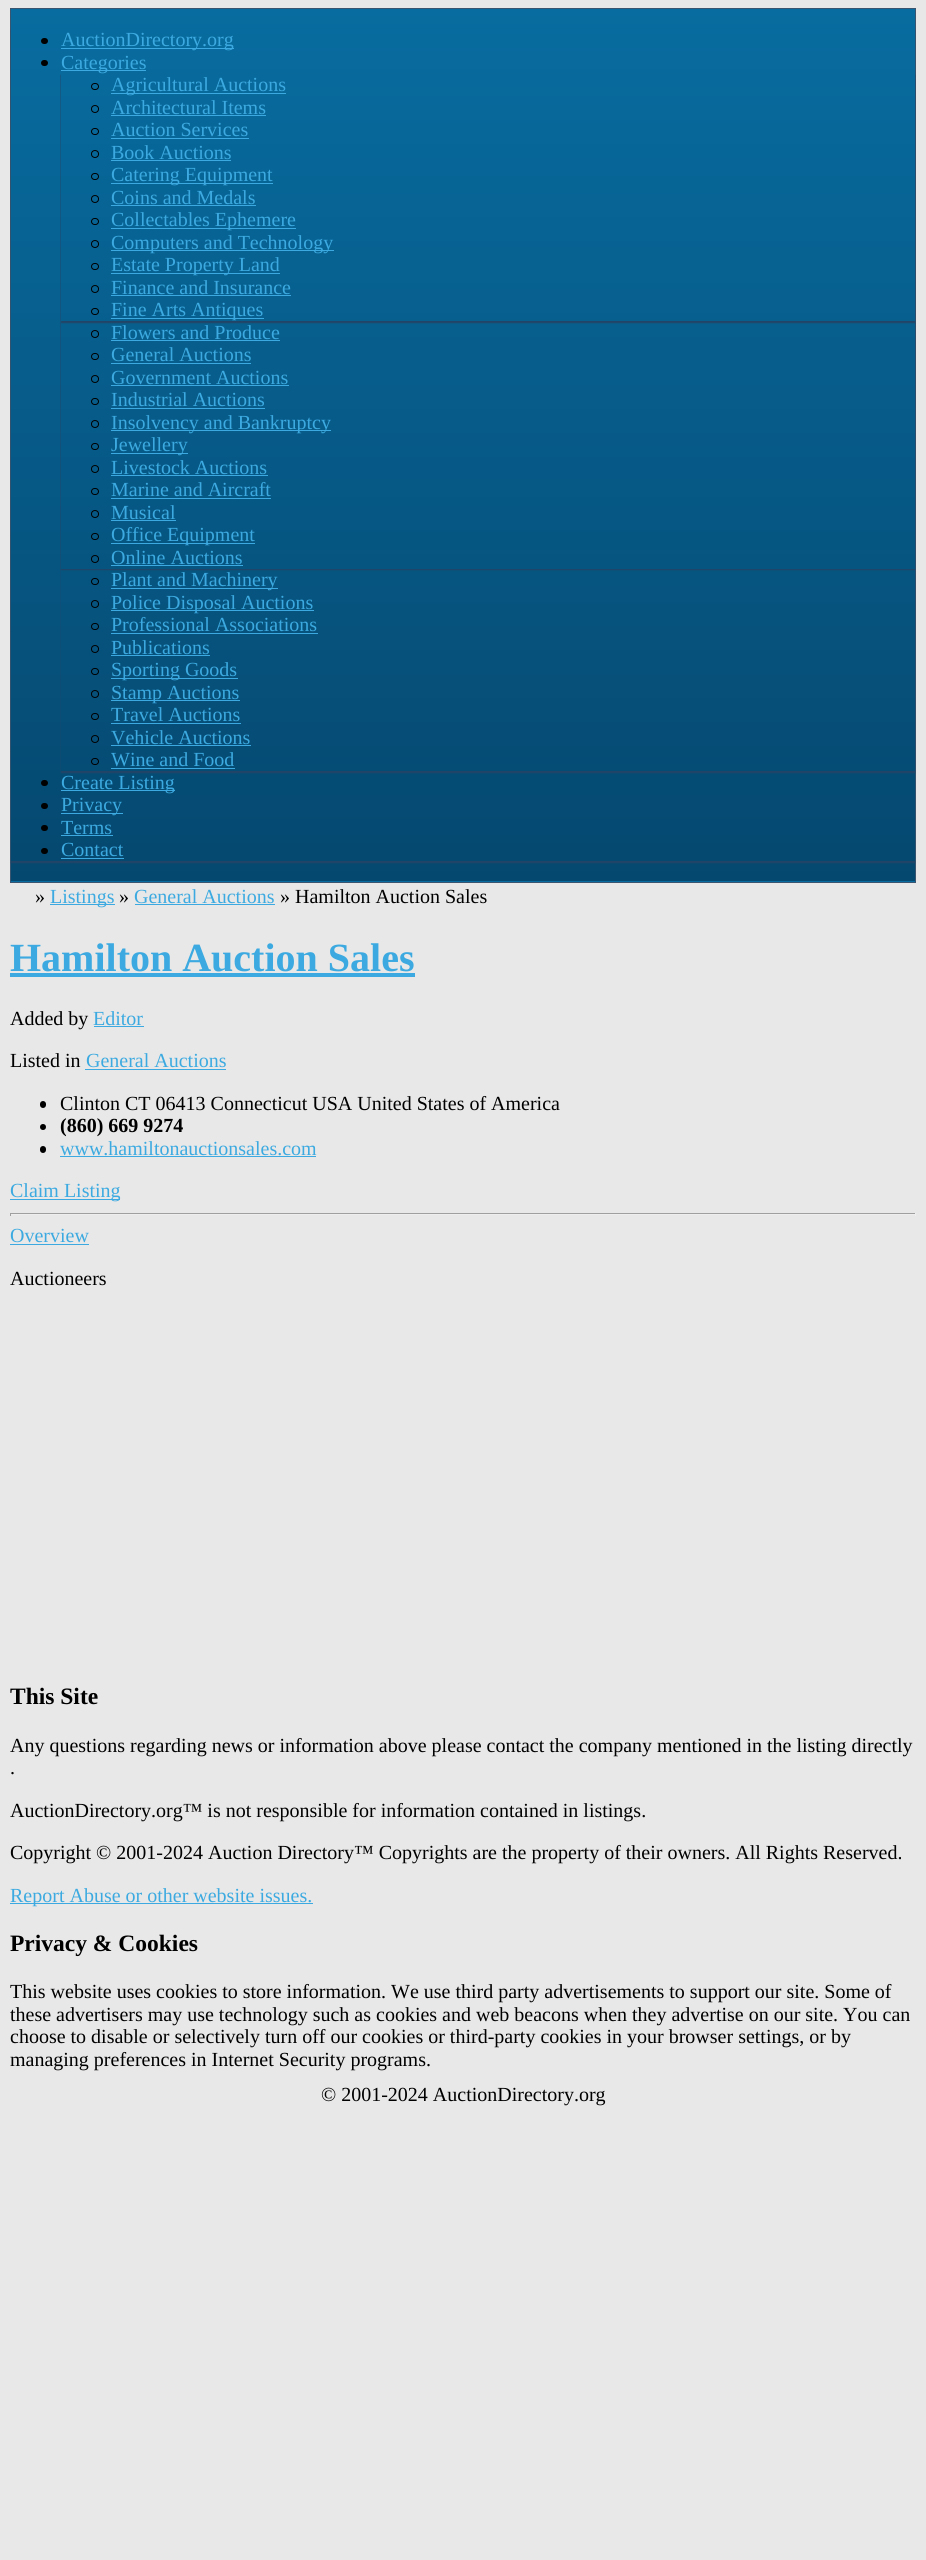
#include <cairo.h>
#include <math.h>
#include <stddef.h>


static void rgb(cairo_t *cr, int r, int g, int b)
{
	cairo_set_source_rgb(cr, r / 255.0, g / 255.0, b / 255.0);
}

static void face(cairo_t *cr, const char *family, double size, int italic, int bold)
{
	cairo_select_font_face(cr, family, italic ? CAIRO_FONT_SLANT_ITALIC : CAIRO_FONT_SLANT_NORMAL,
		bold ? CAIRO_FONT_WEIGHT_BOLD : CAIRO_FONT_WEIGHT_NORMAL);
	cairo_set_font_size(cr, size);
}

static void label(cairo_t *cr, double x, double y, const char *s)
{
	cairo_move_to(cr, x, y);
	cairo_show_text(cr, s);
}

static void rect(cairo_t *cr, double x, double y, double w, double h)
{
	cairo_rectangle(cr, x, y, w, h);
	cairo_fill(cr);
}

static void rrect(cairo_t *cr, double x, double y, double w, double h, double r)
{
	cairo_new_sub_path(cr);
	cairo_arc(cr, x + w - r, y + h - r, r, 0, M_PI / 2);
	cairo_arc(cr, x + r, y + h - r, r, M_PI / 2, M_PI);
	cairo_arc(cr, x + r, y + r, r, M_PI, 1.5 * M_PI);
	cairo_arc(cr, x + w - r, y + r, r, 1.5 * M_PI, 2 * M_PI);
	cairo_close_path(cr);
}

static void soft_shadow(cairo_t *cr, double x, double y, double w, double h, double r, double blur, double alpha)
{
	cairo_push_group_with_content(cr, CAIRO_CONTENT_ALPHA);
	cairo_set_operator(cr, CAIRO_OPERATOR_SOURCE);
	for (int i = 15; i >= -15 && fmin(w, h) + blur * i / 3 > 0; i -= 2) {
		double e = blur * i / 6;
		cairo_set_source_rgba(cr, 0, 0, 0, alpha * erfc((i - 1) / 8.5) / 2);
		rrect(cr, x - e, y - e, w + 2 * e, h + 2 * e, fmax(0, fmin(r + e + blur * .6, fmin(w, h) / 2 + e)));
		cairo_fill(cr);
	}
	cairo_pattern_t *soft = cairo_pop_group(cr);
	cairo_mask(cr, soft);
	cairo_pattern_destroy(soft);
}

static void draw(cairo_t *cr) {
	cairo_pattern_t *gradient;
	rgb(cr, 232, 232, 232);
	cairo_paint(cr);
	gradient = cairo_pattern_create_linear(463, 9, 463, 881);
	cairo_pattern_add_color_stop_rgba(gradient, 0, 0.031, 0.424, 0.627, 1);
	cairo_pattern_add_color_stop_rgba(gradient, 1, 0.02, 0.282, 0.435, 1);
	cairo_set_source(cr, gradient);
	cairo_pattern_destroy(gradient);
	rect(cr, 11, 9, 904, 872);
	gradient = cairo_pattern_create_linear(463, 881, 463, 1754);
	cairo_pattern_add_color_stop_rgba(gradient, 0, 0.031, 0.424, 0.627, 1);
	cairo_pattern_add_color_stop_rgba(gradient, 1, 0.02, 0.282, 0.435, 1);
	cairo_set_source(cr, gradient);
	cairo_pattern_destroy(gradient);
	rect(cr, 10, 881, 906, 1);
	cairo_rectangle(cr, 10.5, 8.5, 905, 874);
	rgb(cr, 58, 85, 112);
	cairo_set_line_width(cr, 1);
	cairo_stroke(cr);
	cairo_save(cr);
	cairo_set_fill_rule(cr, CAIRO_FILL_RULE_EVEN_ODD);
	cairo_new_path(cr);
	cairo_move_to(cr, 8, 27);
	cairo_line_to(cr, 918, 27);
	cairo_line_to(cr, 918, 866);
	cairo_line_to(cr, 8, 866);
	cairo_close_path(cr);
	cairo_move_to(cr, 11, 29);
	cairo_line_to(cr, 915, 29);
	cairo_line_to(cr, 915, 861);
	cairo_line_to(cr, 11, 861);
	cairo_close_path(cr);
	cairo_clip(cr);
	rgb(cr, 34, 68, 102);
	soft_shadow(cr, 11, 30, 904, 833, 0, 0.5, 1);
	cairo_restore(cr);
	rgb(cr, 0, 0, 0);
	rrect(cr, 41, 38, 7, 6, 3);
	cairo_fill(cr);
	rgb(cr, 60, 170, 224);
	rect(cr, 61, 48, 173, 1);
	face(cr, "Liberation Serif", 20, 0, 0);
	label(cr, 61, 46, "AuctionDirectory.org");
	rgb(cr, 0, 0, 0);
	rrect(cr, 41, 60, 7, 6, 3);
	cairo_fill(cr);
	rgb(cr, 60, 170, 224);
	rect(cr, 61, 70, 85, 1);
	cairo_save(cr);
	cairo_set_fill_rule(cr, CAIRO_FILL_RULE_EVEN_ODD);
	cairo_new_path(cr);
	cairo_move_to(cr, 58, 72);
	cairo_line_to(cr, 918, 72);
	cairo_line_to(cr, 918, 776);
	cairo_line_to(cr, 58, 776);
	cairo_close_path(cr);
	cairo_move_to(cr, 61, 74);
	cairo_line_to(cr, 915, 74);
	cairo_line_to(cr, 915, 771);
	cairo_line_to(cr, 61, 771);
	cairo_close_path(cr);
	cairo_clip(cr);
	rgb(cr, 34, 68, 102);
	soft_shadow(cr, 61, 75, 854, 698, 0, 0.5, 1);
	cairo_restore(cr);
	cairo_save(cr);
	cairo_set_fill_rule(cr, CAIRO_FILL_RULE_EVEN_ODD);
	cairo_new_path(cr);
	cairo_move_to(cr, 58, 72);
	cairo_line_to(cr, 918, 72);
	cairo_line_to(cr, 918, 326);
	cairo_line_to(cr, 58, 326);
	cairo_close_path(cr);
	cairo_move_to(cr, 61, 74);
	cairo_line_to(cr, 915, 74);
	cairo_line_to(cr, 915, 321);
	cairo_line_to(cr, 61, 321);
	cairo_close_path(cr);
	cairo_clip(cr);
	rgb(cr, 34, 68, 102);
	soft_shadow(cr, 61, 75, 854, 248, 0, 0.5, 1);
	cairo_restore(cr);
	label(cr, 61, 69, "Categories");
	rrect(cr, 91.5, 83.5, 7, 6, 3);
	rgb(cr, 0, 0, 0);
	cairo_stroke(cr);
	rgb(cr, 60, 170, 224);
	rect(cr, 111, 93, 175, 1);
	label(cr, 111, 91, "Agricultural Auctions");
	cairo_new_path(cr);
	cairo_arc(cr, 95, 109, 3.5, 0, 2 * M_PI);
	rgb(cr, 0, 0, 0);
	cairo_stroke(cr);
	rgb(cr, 60, 170, 224);
	label(cr, 111, 114, "Architectural Items");
	rect(cr, 111, 115, 155, 1);
	rrect(cr, 91.5, 128.5, 7, 6, 3);
	rgb(cr, 0, 0, 0);
	cairo_stroke(cr);
	rgb(cr, 60, 170, 224);
	label(cr, 111, 136, "Auction Services");
	rect(cr, 111, 138, 138, 1);
	cairo_new_path(cr);
	cairo_arc(cr, 95, 154, 3.5, 0, 2 * M_PI);
	rgb(cr, 0, 0, 0);
	cairo_stroke(cr);
	rgb(cr, 60, 170, 224);
	label(cr, 111, 159, "Book Auctions");
	rect(cr, 111, 160, 120, 1);
	rrect(cr, 91.5, 173.5, 7, 6, 3);
	rgb(cr, 0, 0, 0);
	cairo_stroke(cr);
	rgb(cr, 60, 170, 224);
	rect(cr, 111, 183, 162, 1);
	label(cr, 111, 181, "Catering Equipment");
	cairo_new_path(cr);
	cairo_arc(cr, 95, 199, 3.5, 0, 2 * M_PI);
	rgb(cr, 0, 0, 0);
	cairo_stroke(cr);
	rgb(cr, 60, 170, 224);
	label(cr, 111, 204, "Coins and Medals");
	rect(cr, 111, 205, 145, 1);
	rrect(cr, 91.5, 218.5, 7, 6, 3);
	rgb(cr, 0, 0, 0);
	cairo_stroke(cr);
	rgb(cr, 60, 170, 224);
	rect(cr, 111, 228, 185, 1);
	label(cr, 111, 226, "Collectables Ephemere");
	cairo_new_path(cr);
	cairo_arc(cr, 95, 244, 3.5, 0, 2 * M_PI);
	rgb(cr, 0, 0, 0);
	cairo_stroke(cr);
	rgb(cr, 60, 170, 224);
	rect(cr, 111, 250, 223, 1);
	label(cr, 111, 249, "Computers and Technology");
	rrect(cr, 91.5, 263.5, 7, 6, 3);
	rgb(cr, 0, 0, 0);
	cairo_stroke(cr);
	rgb(cr, 60, 170, 224);
	rect(cr, 111, 273, 169, 1);
	label(cr, 111, 271, "Estate Property Land");
	cairo_new_path(cr);
	cairo_arc(cr, 95, 289, 3.5, 0, 2 * M_PI);
	rgb(cr, 0, 0, 0);
	cairo_stroke(cr);
	rgb(cr, 60, 170, 224);
	label(cr, 111, 294, "Finance and Insurance");
	rect(cr, 111, 295, 180, 1);
	rrect(cr, 91.5, 308.5, 7, 6, 3);
	rgb(cr, 0, 0, 0);
	cairo_stroke(cr);
	rgb(cr, 60, 170, 224);
	rect(cr, 111, 318, 153, 1);
	cairo_save(cr);
	cairo_set_fill_rule(cr, CAIRO_FILL_RULE_EVEN_ODD);
	cairo_new_path(cr);
	cairo_move_to(cr, 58, 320);
	cairo_line_to(cr, 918, 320);
	cairo_line_to(cr, 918, 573);
	cairo_line_to(cr, 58, 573);
	cairo_close_path(cr);
	cairo_move_to(cr, 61, 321);
	cairo_line_to(cr, 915, 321);
	cairo_line_to(cr, 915, 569);
	cairo_line_to(cr, 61, 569);
	cairo_close_path(cr);
	cairo_clip(cr);
	rgb(cr, 34, 68, 102);
	soft_shadow(cr, 61, 323, 854, 247, 0, 0.5, 1);
	cairo_restore(cr);
	label(cr, 111, 316, "Fine Arts Antiques");
	cairo_new_path(cr);
	cairo_arc(cr, 95, 334, 3.5, 0, 2 * M_PI);
	rgb(cr, 0, 0, 0);
	cairo_stroke(cr);
	rgb(cr, 60, 170, 224);
	label(cr, 111, 339, "Flowers and Produce");
	rect(cr, 111, 340, 169, 1);
	rrect(cr, 91.5, 353.5, 7, 6, 3);
	rgb(cr, 0, 0, 0);
	cairo_stroke(cr);
	rgb(cr, 60, 170, 224);
	label(cr, 111, 361, "General Auctions");
	rect(cr, 111, 363, 140, 1);
	cairo_new_path(cr);
	cairo_arc(cr, 95, 379, 3.5, 0, 2 * M_PI);
	rgb(cr, 0, 0, 0);
	cairo_stroke(cr);
	rgb(cr, 60, 170, 224);
	label(cr, 111, 384, "Government Auctions");
	rect(cr, 111, 385, 178, 1);
	rrect(cr, 91.5, 398.5, 7, 6, 3);
	rgb(cr, 0, 0, 0);
	cairo_stroke(cr);
	rgb(cr, 60, 170, 224);
	label(cr, 111, 406, "Industrial Auctions");
	rect(cr, 111, 408, 154, 1);
	cairo_new_path(cr);
	cairo_arc(cr, 95, 424, 3.5, 0, 2 * M_PI);
	rgb(cr, 0, 0, 0);
	cairo_stroke(cr);
	rgb(cr, 60, 170, 224);
	rect(cr, 111, 430, 220, 1);
	label(cr, 111, 429, "Insolvency and Bankruptcy");
	rrect(cr, 91.5, 443.5, 7, 6, 3);
	rgb(cr, 0, 0, 0);
	cairo_stroke(cr);
	rgb(cr, 60, 170, 224);
	rect(cr, 111, 453, 77, 1);
	label(cr, 111, 451, "Jewellery");
	cairo_new_path(cr);
	cairo_arc(cr, 95, 469, 3.5, 0, 2 * M_PI);
	rgb(cr, 0, 0, 0);
	cairo_stroke(cr);
	rgb(cr, 60, 170, 224);
	label(cr, 111, 474, "Livestock Auctions");
	rect(cr, 111, 475, 157, 1);
	rrect(cr, 91.5, 488.5, 7, 6, 3);
	rgb(cr, 0, 0, 0);
	cairo_stroke(cr);
	rgb(cr, 60, 170, 224);
	label(cr, 111, 496, "Marine and Aircraft");
	rect(cr, 111, 498, 160, 1);
	cairo_new_path(cr);
	cairo_arc(cr, 95, 514, 3.5, 0, 2 * M_PI);
	rgb(cr, 0, 0, 0);
	cairo_stroke(cr);
	rgb(cr, 60, 170, 224);
	label(cr, 111, 519, "Musical");
	rect(cr, 111, 520, 65, 1);
	rrect(cr, 91.5, 533.5, 7, 6, 3);
	rgb(cr, 0, 0, 0);
	cairo_stroke(cr);
	rgb(cr, 60, 170, 224);
	rect(cr, 111, 543, 144, 1);
	label(cr, 111, 541, "Office Equipment");
	cairo_new_path(cr);
	cairo_arc(cr, 95, 559, 3.5, 0, 2 * M_PI);
	rgb(cr, 0, 0, 0);
	cairo_stroke(cr);
	rgb(cr, 60, 170, 224);
	label(cr, 111, 564, "Online Auctions");
	rect(cr, 111, 565, 132, 1);
	rrect(cr, 91.5, 578.5, 7, 6, 3);
	rgb(cr, 0, 0, 0);
	cairo_stroke(cr);
	rgb(cr, 60, 170, 224);
	rect(cr, 111, 588, 167, 1);
	label(cr, 111, 586, "Plant and Machinery");
	cairo_new_path(cr);
	cairo_arc(cr, 95, 604, 3.5, 0, 2 * M_PI);
	rgb(cr, 0, 0, 0);
	cairo_stroke(cr);
	rgb(cr, 60, 170, 224);
	rect(cr, 111, 610, 203, 1);
	label(cr, 111, 609, "Police Disposal Auctions");
	rrect(cr, 91.5, 623.5, 7, 6, 3);
	rgb(cr, 0, 0, 0);
	cairo_stroke(cr);
	rgb(cr, 60, 170, 224);
	label(cr, 111, 631, "Professional Associations");
	rect(cr, 111, 633, 207, 1);
	cairo_new_path(cr);
	cairo_arc(cr, 95, 649, 3.5, 0, 2 * M_PI);
	rgb(cr, 0, 0, 0);
	cairo_stroke(cr);
	rgb(cr, 60, 170, 224);
	label(cr, 111, 654, "Publications");
	rect(cr, 111, 655, 99, 1);
	rrect(cr, 91.5, 668.5, 7, 6, 3);
	rgb(cr, 0, 0, 0);
	cairo_stroke(cr);
	rgb(cr, 60, 170, 224);
	rect(cr, 111, 678, 127, 1);
	label(cr, 111, 676, "Sporting Goods");
	cairo_new_path(cr);
	cairo_arc(cr, 95, 694, 3.5, 0, 2 * M_PI);
	rgb(cr, 0, 0, 0);
	cairo_stroke(cr);
	rgb(cr, 60, 170, 224);
	rect(cr, 111, 700, 129, 1);
	label(cr, 111, 699, "Stamp Auctions");
	rrect(cr, 91.5, 713.5, 7, 6, 3);
	rgb(cr, 0, 0, 0);
	cairo_stroke(cr);
	rgb(cr, 60, 170, 224);
	label(cr, 111, 721, "Travel Auctions");
	rect(cr, 111, 723, 130, 1);
	cairo_new_path(cr);
	cairo_arc(cr, 95, 739, 3.5, 0, 2 * M_PI);
	rgb(cr, 0, 0, 0);
	cairo_stroke(cr);
	rgb(cr, 60, 170, 224);
	label(cr, 111, 744, "Vehicle Auctions");
	rect(cr, 111, 745, 140, 1);
	rrect(cr, 91.5, 758.5, 7, 6, 3);
	rgb(cr, 0, 0, 0);
	cairo_stroke(cr);
	rgb(cr, 60, 170, 224);
	label(cr, 111, 766, "Wine and Food");
	rect(cr, 111, 768, 124, 1);
	rgb(cr, 0, 0, 0);
	rrect(cr, 41, 780, 7, 6, 3);
	cairo_fill(cr);
	rgb(cr, 60, 170, 224);
	rect(cr, 61, 790, 114, 1);
	label(cr, 61, 789, "Create Listing");
	rgb(cr, 0, 0, 0);
	rrect(cr, 41, 803, 7, 6, 3);
	cairo_fill(cr);
	rgb(cr, 60, 170, 224);
	rect(cr, 61, 813, 62, 1);
	label(cr, 61, 811, "Privacy");
	rgb(cr, 0, 0, 0);
	rrect(cr, 41, 825, 7, 6, 3);
	cairo_fill(cr);
	rgb(cr, 60, 170, 224);
	label(cr, 61, 834, "Terms");
	rect(cr, 61, 835, 52, 1);
	rgb(cr, 0, 0, 0);
	rrect(cr, 41, 848, 7, 6, 3);
	cairo_fill(cr);
	rgb(cr, 60, 170, 224);
	label(cr, 61, 856, "Contact");
	rect(cr, 61, 858, 63, 1);
	rgb(cr, 0, 0, 0);
	label(cr, 35, 903, "»");
	rgb(cr, 60, 170, 224);
	rect(cr, 50, 904, 65, 1);
	label(cr, 50, 903, "Listings");
	rgb(cr, 0, 0, 0);
	label(cr, 119, 903, "»");
	rgb(cr, 60, 170, 224);
	label(cr, 134, 903, "General Auctions");
	rect(cr, 135, 904, 140, 1);
	rgb(cr, 0, 0, 0);
	label(cr, 280, 903, "» Hamilton Auction Sales");
	face(cr, "Liberation Serif", 40, 0, 1);
	rgb(cr, 60, 170, 224);
	label(cr, 10, 971, "Hamilton Auction Sales");
	rect(cr, 10, 973, 405, 4);
	face(cr, "Liberation Serif", 20, 0, 0);
	rgb(cr, 0, 0, 0);
	label(cr, 10, 1025, "Added by");
	rgb(cr, 60, 170, 224);
	label(cr, 93, 1025, "Editor");
	rect(cr, 94, 1026, 50, 1);
	rgb(cr, 0, 0, 0);
	label(cr, 10, 1067, "Listed in");
	rgb(cr, 60, 170, 224);
	label(cr, 86, 1067, "General Auctions");
	rect(cr, 85, 1069, 141, 1);
	rgb(cr, 0, 0, 0);
	rrect(cr, 40, 1101, 6, 7, 3);
	cairo_fill(cr);
	label(cr, 60, 1110, "Clinton CT 06413 Connecticut USA United States of America");
	cairo_new_path(cr);
	cairo_arc(cr, 43, 1127, 3, 0, 2 * M_PI);
	cairo_fill(cr);
	face(cr, "Liberation Serif", 20, 0, 1);
	label(cr, 60, 1132, "(860) 669 9274");
	rrect(cr, 40, 1146, 6, 7, 3);
	cairo_fill(cr);
	face(cr, "Liberation Serif", 20, 0, 0);
	rgb(cr, 60, 170, 224);
	label(cr, 60, 1155, "www.hamiltonauctionsales.com");
	rect(cr, 60, 1156, 256, 1);
	rect(cr, 10, 1199, 110, 1);
	label(cr, 10, 1197, "Claim Listing");
	rgb(cr, 159, 159, 159);
	rect(cr, 10, 1213, 906, 1);
	rgb(cr, 238, 238, 238);
	rect(cr, 915, 1213, 1, 3);
	rect(cr, 10, 1214, 906, 1);
	rgb(cr, 159, 159, 159);
	rect(cr, 10, 1213, 1, 3);
	rgb(cr, 60, 170, 224);
	label(cr, 10, 1242, "Overview");
	rect(cr, 10, 1244, 79, 1);
	rgb(cr, 0, 0, 0);
	label(cr, 10, 1285, "Auctioneers");
	face(cr, "Liberation Serif", 23.5, 0, 1);
	label(cr, 10, 1704, "This Site");
	face(cr, "Liberation Serif", 20, 0, 0);
	label(cr, 10, 1752, "Any questions regarding news or information above please contact the company mentioned in the listing directly");
	label(cr, 10, 1774, ".");
	label(cr, 10, 1817, "AuctionDirectory.org™ is not responsible for information contained in listings.");
	label(cr, 10, 1859, "Copyright © 2001-2024 Auction Directory™ Copyrights are the property of their owners. All Rights Reserved.");
	rgb(cr, 60, 170, 224);
	rect(cr, 10, 1903, 303, 1);
	label(cr, 10, 1902, "Report Abuse or other website issues.");
	face(cr, "Liberation Serif", 23.5, 0, 1);
	rgb(cr, 0, 0, 0);
	label(cr, 10, 1951, "Privacy & Cookies");
	face(cr, "Liberation Serif", 20, 0, 0);
	label(cr, 10, 1998, "This website uses cookies to store information. We use third party advertisements to support our site. Some of");
	label(cr, 10, 2021, "these advertisers may use technology such as cookies and web beacons when they advertise on our site. You can");
	label(cr, 10, 2043, "choose to disable or selectively turn off our cookies or third-party cookies in your browser settings, or by");
	label(cr, 10, 2066, "managing preferences in Internet Security programs.");
	label(cr, 321, 2101, "© 2001-2024 AuctionDirectory.org");
}

int main(void) {
	cairo_surface_t *surface = cairo_image_surface_create(CAIRO_FORMAT_RGB24, 926, 2560);
	cairo_t *cr = cairo_create(surface);
	cairo_font_options_t *options = cairo_font_options_create();
	cairo_font_options_set_hint_metrics(options, CAIRO_HINT_METRICS_OFF);
	cairo_font_options_set_hint_style(options, CAIRO_HINT_STYLE_NONE);
	cairo_set_font_options(cr, options);
	cairo_set_miter_limit(cr, 4);
	draw(cr);
	cairo_surface_write_to_png(surface, "render.png");
	cairo_font_options_destroy(options);
	cairo_destroy(cr);
	cairo_surface_destroy(surface);
	return 0;
}
